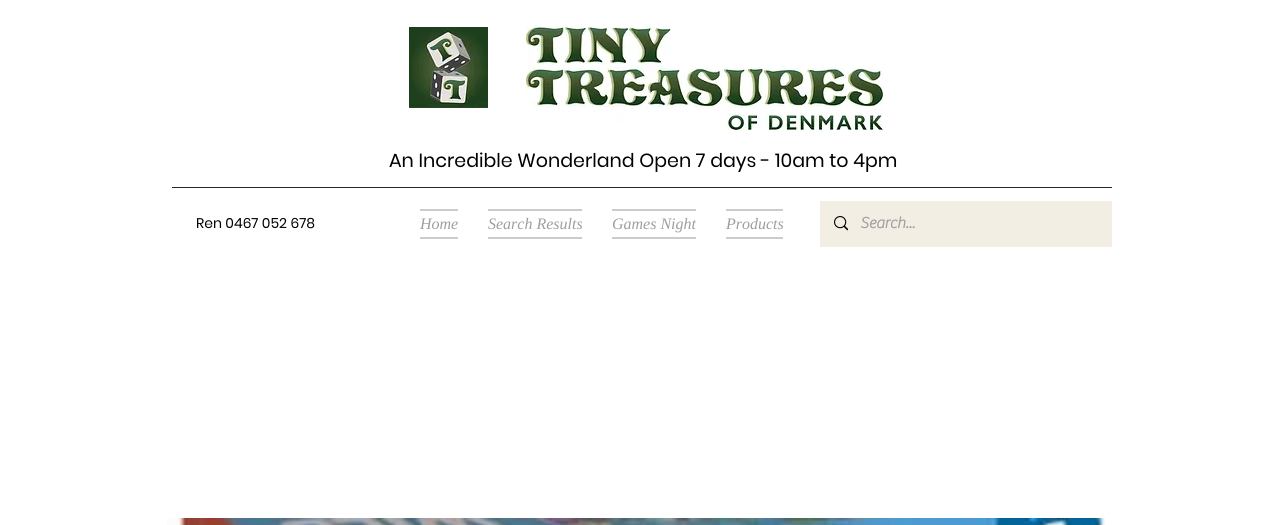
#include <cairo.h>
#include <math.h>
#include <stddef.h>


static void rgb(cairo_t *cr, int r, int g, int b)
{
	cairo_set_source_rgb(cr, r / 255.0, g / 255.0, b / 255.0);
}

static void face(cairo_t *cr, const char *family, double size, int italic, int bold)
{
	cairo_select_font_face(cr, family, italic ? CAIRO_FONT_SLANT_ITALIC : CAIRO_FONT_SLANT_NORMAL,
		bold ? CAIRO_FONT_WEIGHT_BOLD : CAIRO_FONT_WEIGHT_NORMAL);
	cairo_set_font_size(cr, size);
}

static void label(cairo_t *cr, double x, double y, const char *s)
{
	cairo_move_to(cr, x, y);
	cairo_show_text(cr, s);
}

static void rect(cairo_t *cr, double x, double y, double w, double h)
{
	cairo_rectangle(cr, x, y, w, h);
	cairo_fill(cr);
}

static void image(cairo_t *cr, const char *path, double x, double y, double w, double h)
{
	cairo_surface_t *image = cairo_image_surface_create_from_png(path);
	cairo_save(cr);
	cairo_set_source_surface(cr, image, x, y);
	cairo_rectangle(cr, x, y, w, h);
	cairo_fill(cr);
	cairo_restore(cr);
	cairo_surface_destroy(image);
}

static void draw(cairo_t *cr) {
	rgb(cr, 255, 255, 255);
	cairo_paint(cr);
	image(cr, "image0.png", 409, 27, 79, 81);
	image(cr, "image1.png", 526, 27, 357, 103);
	face(cr, "Poppins", 19, 0, 0);
	rgb(cr, 0, 0, 0);
	label(cr, 389, 167, "An Incredible Wonderland Open 7 days - 10am to 4pm");
	rgb(cr, 38, 38, 38);
	rect(cr, 172, 187, 940, 1);
	face(cr, "Poppins", 14, 0, 0);
	rgb(cr, 0, 0, 0);
	label(cr, 196, 228, "Ren 0467 052 678");
	rgb(cr, 204, 204, 204);
	rect(cr, 420, 209, 38, 2);
	rect(cr, 420, 237, 38, 2);
	face(cr, "Liberation Serif", 16, 1, 0);
	rgb(cr, 158, 158, 158);
	label(cr, 420, 229, "Home");
	rgb(cr, 204, 204, 204);
	rect(cr, 488, 209, 94, 2);
	rect(cr, 488, 237, 94, 2);
	rgb(cr, 158, 158, 158);
	label(cr, 488, 229, "Search Results");
	rgb(cr, 204, 204, 204);
	rect(cr, 612, 209, 84, 2);
	rect(cr, 612, 237, 84, 2);
	rgb(cr, 158, 158, 158);
	label(cr, 612, 229, "Games Night");
	rgb(cr, 204, 204, 204);
	rect(cr, 726, 209, 57, 2);
	rect(cr, 726, 237, 57, 2);
	rgb(cr, 158, 158, 158);
	label(cr, 726, 229, "Products");
	rgb(cr, 242, 238, 228);
	rect(cr, 820, 201, 292, 46);
	image(cr, "image2.png", 834, 216, 14, 15);
	face(cr, "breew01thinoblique", 16, 0, 1);
	rgb(cr, 158, 158, 158);
	label(cr, 860, 228, "Search...");
	image(cr, "image3.png", 167, 518, 938, 7);
}

int main(void) {
	cairo_surface_t *surface = cairo_image_surface_create(CAIRO_FORMAT_RGB24, 1284, 525);
	cairo_t *cr = cairo_create(surface);
	cairo_font_options_t *options = cairo_font_options_create();
	cairo_font_options_set_hint_metrics(options, CAIRO_HINT_METRICS_OFF);
	cairo_font_options_set_hint_style(options, CAIRO_HINT_STYLE_NONE);
	cairo_set_font_options(cr, options);
	cairo_set_miter_limit(cr, 4);
	draw(cr);
	cairo_surface_write_to_png(surface, "render.png");
	cairo_font_options_destroy(options);
	cairo_destroy(cr);
	cairo_surface_destroy(surface);
	return 0;
}
